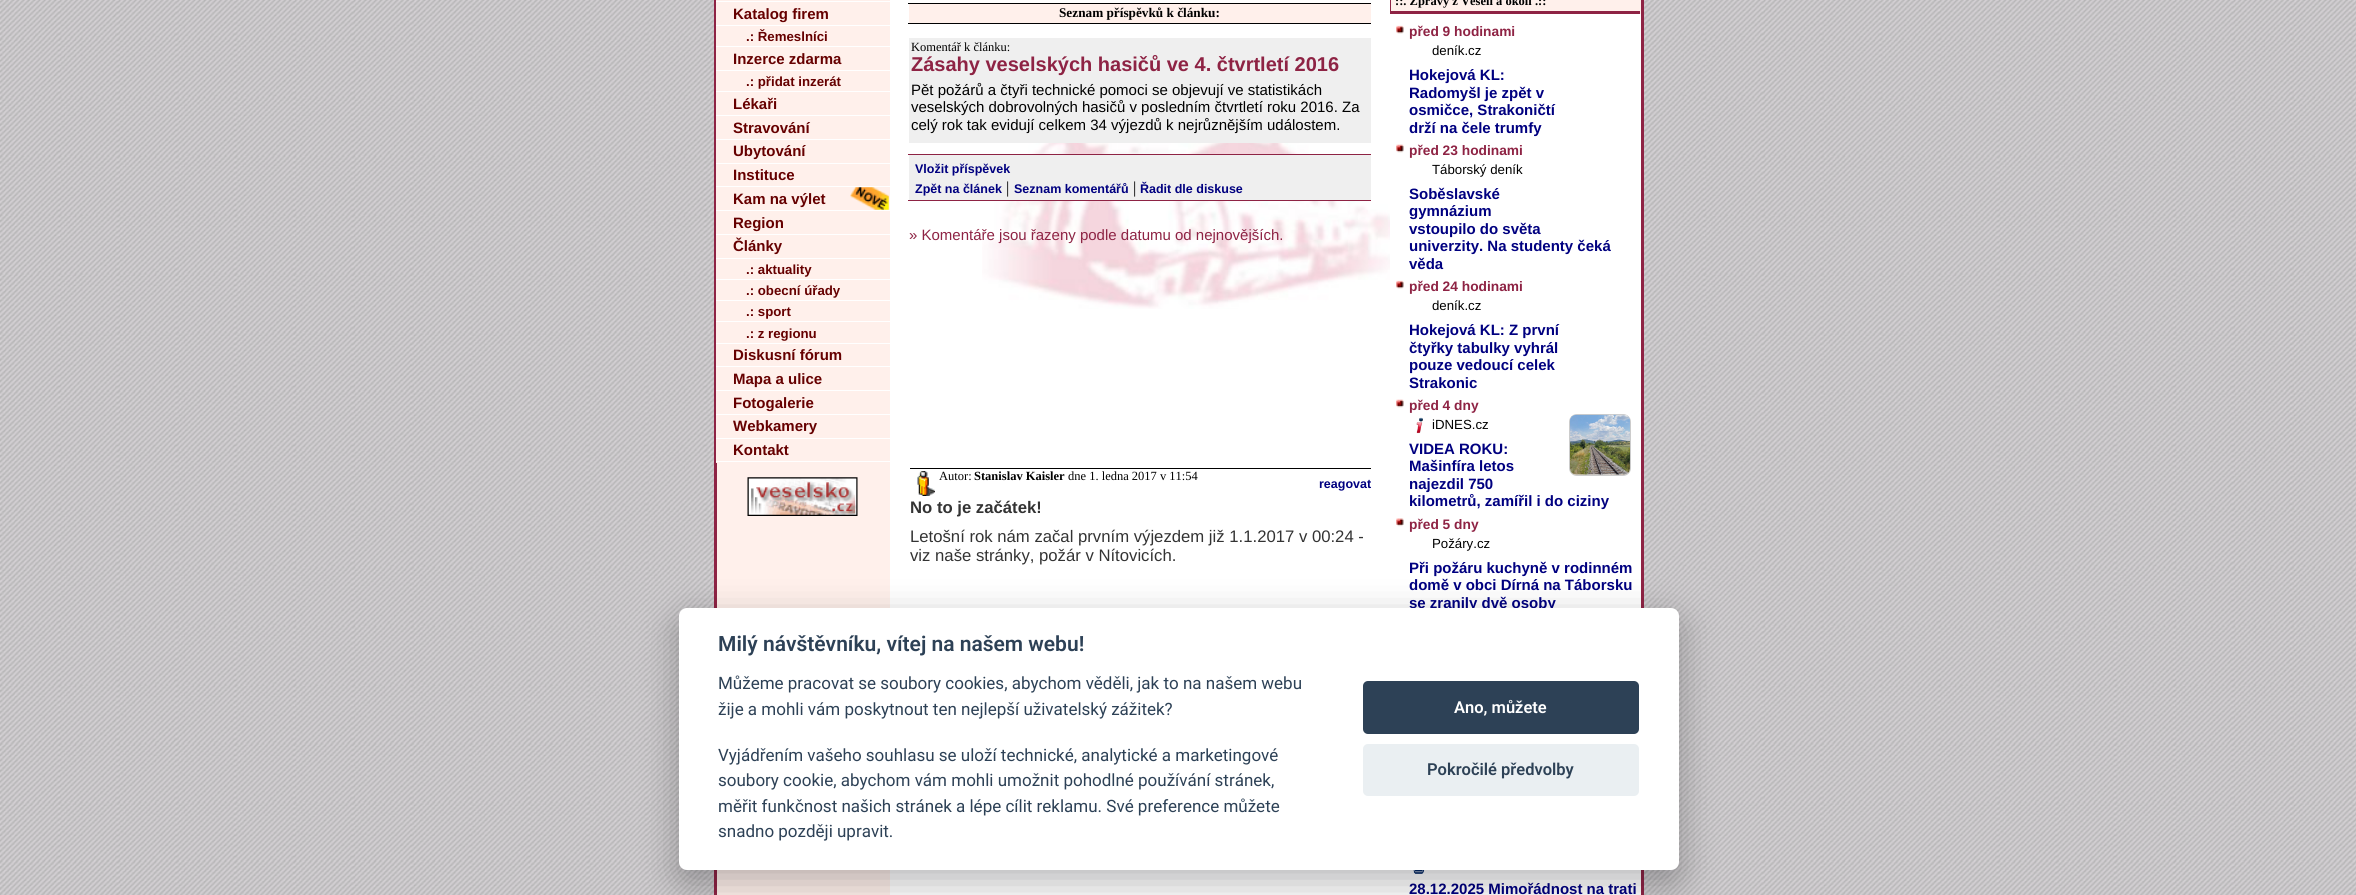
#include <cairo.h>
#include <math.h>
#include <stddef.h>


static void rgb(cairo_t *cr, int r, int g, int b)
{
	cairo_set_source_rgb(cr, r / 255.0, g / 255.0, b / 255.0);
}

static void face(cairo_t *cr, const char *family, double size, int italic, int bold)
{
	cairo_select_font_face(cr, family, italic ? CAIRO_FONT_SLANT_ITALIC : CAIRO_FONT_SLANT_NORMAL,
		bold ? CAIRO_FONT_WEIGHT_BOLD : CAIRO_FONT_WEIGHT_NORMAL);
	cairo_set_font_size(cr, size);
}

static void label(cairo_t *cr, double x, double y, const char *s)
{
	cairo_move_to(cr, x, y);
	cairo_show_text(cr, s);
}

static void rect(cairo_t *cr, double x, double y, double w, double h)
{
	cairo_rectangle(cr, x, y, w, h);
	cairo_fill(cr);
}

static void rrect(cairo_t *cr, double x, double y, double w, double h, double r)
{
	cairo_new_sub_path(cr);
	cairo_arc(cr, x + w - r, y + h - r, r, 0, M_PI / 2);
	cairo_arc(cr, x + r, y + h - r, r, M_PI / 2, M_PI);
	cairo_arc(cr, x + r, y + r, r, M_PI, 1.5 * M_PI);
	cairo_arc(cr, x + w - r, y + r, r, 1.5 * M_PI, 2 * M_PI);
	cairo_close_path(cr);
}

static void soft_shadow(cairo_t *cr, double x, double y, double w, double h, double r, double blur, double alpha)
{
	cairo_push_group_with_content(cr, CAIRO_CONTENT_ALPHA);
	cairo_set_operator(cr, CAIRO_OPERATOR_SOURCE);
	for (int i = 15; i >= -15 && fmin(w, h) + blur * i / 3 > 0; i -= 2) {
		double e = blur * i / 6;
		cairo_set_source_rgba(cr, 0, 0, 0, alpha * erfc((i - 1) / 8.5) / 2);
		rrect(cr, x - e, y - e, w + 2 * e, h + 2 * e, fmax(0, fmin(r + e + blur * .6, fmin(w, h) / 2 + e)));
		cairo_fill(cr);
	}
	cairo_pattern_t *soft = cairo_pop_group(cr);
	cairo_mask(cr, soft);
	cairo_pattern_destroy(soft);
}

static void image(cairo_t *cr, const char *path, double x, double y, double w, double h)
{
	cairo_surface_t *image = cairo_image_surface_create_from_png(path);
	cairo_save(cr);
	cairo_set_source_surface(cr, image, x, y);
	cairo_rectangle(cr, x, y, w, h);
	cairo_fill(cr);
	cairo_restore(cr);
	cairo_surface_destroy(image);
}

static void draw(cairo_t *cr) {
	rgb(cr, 255, 255, 255);
	cairo_paint(cr);
	image(cr, "image0.png", 0, 0, 2356, 895);
	rgb(cr, 255, 255, 255);
	rect(cr, 890, 0, 500, 895);
	rgb(cr, 142, 35, 68);
	rect(cr, 1641, 0, 3, 895);
	rect(cr, 714, 0, 3, 895);
	rgb(cr, 255, 240, 235);
	rect(cr, 717, 463, 173, 432);
	rect(cr, 716, 0, 174, 25);
	rgb(cr, 255, 255, 255);
	rect(cr, 716, 1, 174, 1);
	rect(cr, 716, 25, 174, 1);
	face(cr, "Liberation Sans", 15, 0, 1);
	rgb(cr, 102, 0, 0);
	label(cr, 733, 19, "Katalog firem");
	rgb(cr, 255, 240, 235);
	rect(cr, 716, 26, 174, 44);
	rgb(cr, 255, 255, 255);
	rect(cr, 716, 46, 174, 1);
	face(cr, "Liberation Sans", 13.25, 0, 1);
	rgb(cr, 102, 0, 0);
	label(cr, 746, 41, ".: Řemeslníci");
	rgb(cr, 255, 255, 255);
	rect(cr, 716, 70, 174, 1);
	face(cr, "Liberation Sans", 15, 0, 1);
	rgb(cr, 102, 0, 0);
	label(cr, 733, 64, "Inzerce zdarma");
	rgb(cr, 255, 240, 235);
	rect(cr, 716, 71, 174, 44);
	rgb(cr, 255, 255, 255);
	rect(cr, 716, 91, 174, 1);
	face(cr, "Liberation Sans", 13.25, 0, 1);
	rgb(cr, 102, 0, 0);
	label(cr, 746, 86, ".: přidat inzerát");
	rgb(cr, 255, 255, 255);
	rect(cr, 716, 115, 174, 1);
	face(cr, "Liberation Sans", 15, 0, 1);
	rgb(cr, 102, 0, 0);
	label(cr, 733, 109, "Lékaři");
	rgb(cr, 255, 240, 235);
	rect(cr, 716, 116, 174, 23);
	rgb(cr, 255, 255, 255);
	rect(cr, 716, 139, 174, 1);
	rgb(cr, 102, 0, 0);
	label(cr, 733, 133, "Stravování");
	rgb(cr, 255, 240, 235);
	rect(cr, 716, 140, 174, 23);
	rgb(cr, 255, 255, 255);
	rect(cr, 716, 163, 174, 1);
	rgb(cr, 102, 0, 0);
	label(cr, 733, 156, "Ubytování");
	rgb(cr, 255, 240, 235);
	rect(cr, 716, 164, 174, 46);
	rgb(cr, 255, 255, 255);
	rect(cr, 716, 186, 174, 1);
	rgb(cr, 102, 0, 0);
	label(cr, 733, 180, "Instituce");
	image(cr, "image1.png", 850, 187, 39, 23);
	rgb(cr, 255, 255, 255);
	rect(cr, 716, 210, 174, 1);
	rgb(cr, 102, 0, 0);
	label(cr, 733, 204, "Kam na výlet");
	rgb(cr, 255, 240, 235);
	rect(cr, 716, 211, 174, 23);
	rgb(cr, 255, 255, 255);
	rect(cr, 716, 234, 174, 1);
	rgb(cr, 102, 0, 0);
	label(cr, 733, 228, "Region");
	rgb(cr, 255, 240, 235);
	rect(cr, 716, 235, 174, 23);
	rgb(cr, 255, 255, 255);
	rect(cr, 716, 258, 174, 1);
	rgb(cr, 102, 0, 0);
	label(cr, 733, 251, "Články");
	rgb(cr, 255, 240, 235);
	rect(cr, 716, 259, 174, 20);
	rgb(cr, 255, 255, 255);
	rect(cr, 716, 279, 174, 1);
	face(cr, "Liberation Sans", 13.25, 0, 1);
	rgb(cr, 102, 0, 0);
	label(cr, 746, 274, ".: aktuality");
	rgb(cr, 255, 240, 235);
	rect(cr, 716, 280, 174, 20);
	rgb(cr, 255, 255, 255);
	rect(cr, 716, 300, 174, 1);
	rgb(cr, 102, 0, 0);
	label(cr, 746, 295, ".: obecní úřady");
	rgb(cr, 255, 240, 235);
	rect(cr, 716, 301, 174, 42);
	rgb(cr, 255, 255, 255);
	rect(cr, 716, 321, 174, 1);
	rgb(cr, 102, 0, 0);
	label(cr, 746, 316, ".: sport");
	rgb(cr, 255, 255, 255);
	rect(cr, 716, 343, 174, 1);
	rgb(cr, 102, 0, 0);
	label(cr, 746, 338, ".: z regionu");
	rgb(cr, 255, 240, 235);
	rect(cr, 716, 344, 174, 46);
	rgb(cr, 255, 255, 255);
	rect(cr, 716, 366, 174, 1);
	face(cr, "Liberation Sans", 15, 0, 1);
	rgb(cr, 102, 0, 0);
	label(cr, 733, 360, "Diskusní fórum");
	rgb(cr, 255, 255, 255);
	rect(cr, 716, 390, 174, 1);
	rgb(cr, 102, 0, 0);
	label(cr, 733, 384, "Mapa a ulice");
	rgb(cr, 255, 240, 235);
	rect(cr, 716, 391, 174, 23);
	rgb(cr, 255, 255, 255);
	rect(cr, 716, 414, 174, 1);
	rgb(cr, 102, 0, 0);
	label(cr, 733, 408, "Fotogalerie");
	rgb(cr, 255, 240, 235);
	rect(cr, 716, 415, 174, 23);
	rgb(cr, 255, 255, 255);
	rect(cr, 716, 438, 174, 1);
	rgb(cr, 102, 0, 0);
	label(cr, 733, 431, "Webkamery");
	rgb(cr, 255, 240, 235);
	rect(cr, 716, 439, 174, 24);
	rgb(cr, 255, 255, 255);
	rect(cr, 716, 461, 174, 1);
	rgb(cr, 102, 0, 0);
	label(cr, 733, 455, "Kontakt");
	image(cr, "image2.png", 747, 477, 111, 39);
	image(cr, "image3.png", 982, 42, 408, 267);
	rgb(cr, 255, 240, 235);
	rect(cr, 909, 4, 462, 19);
	rgb(cr, 0, 0, 0);
	rect(cr, 908, 3, 463, 1);
	rect(cr, 908, 23, 463, 1);
	face(cr, "Liberation Serif", 13.25, 0, 1);
	label(cr, 1059, 17, "Seznam příspěvků k článku:");
	rgb(cr, 239, 239, 239);
	rect(cr, 909, 38, 462, 105);
	face(cr, "Liberation Serif", 12.5, 0, 0);
	rgb(cr, 0, 0, 0);
	label(cr, 911, 51, "Komentář k článku:");
	face(cr, "Liberation Sans", 20, 0, 1);
	rgb(cr, 142, 35, 68);
	label(cr, 911, 71, "Zásahy veselských hasičů ve 4. čtvrtletí 2016");
	face(cr, "Liberation Sans", 15, 0, 0);
	rgb(cr, 0, 0, 0);
	label(cr, 911, 95, "Pět požárů a čtyři technické pomoci se objevují ve statistikách");
	label(cr, 911, 112, "veselských dobrovolných hasičů v posledním čtvrtletí roku 2016. Za");
	label(cr, 911, 130, "celý rok tak evidují celkem 34 výjezdů k nejrůznějším událostem.");
	rgb(cr, 239, 239, 239);
	rect(cr, 909, 155, 462, 45);
	rgb(cr, 142, 35, 68);
	rect(cr, 908, 154, 463, 1);
	rect(cr, 908, 200, 463, 1);
	face(cr, "Liberation Sans", 12.5, 0, 1);
	rgb(cr, 0, 0, 128);
	label(cr, 915, 173, "Vložit příspěvek");
	label(cr, 915, 193, "Zpět na článek");
	face(cr, "Liberation Serif", 16.7, 0, 0);
	rgb(cr, 0, 0, 0);
	label(cr, 1006, 193, "|");
	face(cr, "Liberation Sans", 12.5, 0, 1);
	rgb(cr, 0, 0, 128);
	label(cr, 1014, 193, "Seznam komentářů");
	face(cr, "Liberation Serif", 16.7, 0, 0);
	rgb(cr, 0, 0, 0);
	label(cr, 1133, 193, "|");
	face(cr, "Liberation Sans", 12.5, 0, 1);
	rgb(cr, 0, 0, 128);
	label(cr, 1140, 193, "Řadit dle diskuse");
	face(cr, "Liberation Sans", 15, 0, 0);
	rgb(cr, 142, 35, 68);
	label(cr, 909, 240, "» Komentáře jsou řazeny podle datumu od nejnovějších.");
	rgb(cr, 0, 0, 0);
	rect(cr, 910, 468, 461, 1);
	image(cr, "image4.png", 917, 471, 18, 25);
	face(cr, "Liberation Serif", 12.5, 0, 0);
	label(cr, 939, 480, "Autor:");
	face(cr, "Liberation Serif", 12.5, 0, 1);
	label(cr, 974, 480, "Stanislav Kaisler");
	face(cr, "Liberation Serif", 12.5, 0, 0);
	label(cr, 1068, 480, "dne 1. ledna 2017 v 11:54");
	face(cr, "Liberation Sans", 12.5, 0, 1);
	rgb(cr, 0, 0, 128);
	label(cr, 1319, 488, "reagovat");
	face(cr, "Liberation Sans", 16.7, 0, 1);
	rgb(cr, 51, 51, 51);
	label(cr, 910, 513, "No to je začátek!");
	face(cr, "Liberation Sans", 16.7, 0, 0);
	label(cr, 910, 542, "Letošní rok nám začal prvním výjezdem již 1.1.2017 v 00:24 -");
	label(cr, 910, 561, "viz naše stránky, požár v Nítovicích.");
	rgb(cr, 255, 240, 235);
	rect(cr, 1391, 0, 250, 14);
	rgb(cr, 142, 35, 68);
	rect(cr, 1390, 0, 1, 14);
	rect(cr, 1390, 11, 250, 3);
	face(cr, "Liberation Serif", 12.5, 0, 1);
	rgb(cr, 0, 0, 0);
	label(cr, 1395, 5, "::. Zprávy z Veselí a okolí .::");
	rgb(cr, 255, 255, 255);
	rect(cr, 1390, 14, 251, 881);
	image(cr, "image5.png", 1396, 25, 8, 9);
	face(cr, "Liberation Sans", 13.75, 0, 1);
	rgb(cr, 142, 35, 68);
	label(cr, 1409, 36, "před 9 hodinami");
	face(cr, "Liberation Sans", 13.25, 0, 0);
	rgb(cr, 0, 0, 0);
	label(cr, 1432, 55, "deník.cz");
	face(cr, "Liberation Sans", 15, 0, 1);
	rgb(cr, 0, 0, 128);
	label(cr, 1409, 80, "Hokejová KL:");
	label(cr, 1409, 98, "Radomyšl je zpět v");
	label(cr, 1409, 115, "osmičce, Strakoničtí");
	label(cr, 1409, 133, "drží na čele trumfy");
	image(cr, "image6.png", 1396, 144, 8, 9);
	face(cr, "Liberation Sans", 13.75, 0, 1);
	rgb(cr, 142, 35, 68);
	label(cr, 1409, 155, "před 23 hodinami");
	face(cr, "Liberation Sans", 13.25, 0, 0);
	rgb(cr, 0, 0, 0);
	label(cr, 1432, 174, "Táborský deník");
	face(cr, "Liberation Sans", 15, 0, 1);
	rgb(cr, 0, 0, 128);
	label(cr, 1409, 199, "Soběslavské");
	label(cr, 1409, 216, "gymnázium");
	label(cr, 1409, 234, "vstoupilo do světa");
	label(cr, 1409, 251, "univerzity. Na studenty čeká");
	label(cr, 1409, 269, "věda");
	image(cr, "image5.png", 1396, 280, 8, 9);
	face(cr, "Liberation Sans", 13.75, 0, 1);
	rgb(cr, 142, 35, 68);
	label(cr, 1409, 291, "před 24 hodinami");
	face(cr, "Liberation Sans", 13.25, 0, 0);
	rgb(cr, 0, 0, 0);
	label(cr, 1432, 310, "deník.cz");
	face(cr, "Liberation Sans", 15, 0, 1);
	rgb(cr, 0, 0, 128);
	label(cr, 1409, 335, "Hokejová KL: Z první");
	label(cr, 1409, 353, "čtyřky tabulky vyhrál");
	label(cr, 1409, 370, "pouze vedoucí celek");
	label(cr, 1409, 388, "Strakonic");
	image(cr, "image6.png", 1396, 399, 8, 9);
	face(cr, "Liberation Sans", 13.75, 0, 1);
	rgb(cr, 142, 35, 68);
	label(cr, 1409, 410, "před 4 dny");
	image(cr, "image7.png", 1416, 417, 7, 17);
	face(cr, "Liberation Sans", 13.25, 0, 0);
	rgb(cr, 0, 0, 0);
	label(cr, 1432, 429, "iDNES.cz");
	rrect(cr, 1569.5, 414.5, 61, 61, 7.5);
	rgb(cr, 204, 204, 204);
	cairo_set_line_width(cr, 1);
	cairo_stroke(cr);
	image(cr, "image8.png", 1570, 414, 60, 61);
	face(cr, "Liberation Sans", 15, 0, 1);
	rgb(cr, 0, 0, 128);
	label(cr, 1409, 454, "VIDEA ROKU:");
	label(cr, 1409, 471, "Mašinfíra letos");
	label(cr, 1409, 489, "najezdil 750");
	label(cr, 1409, 506, "kilometrů, zamířil i do ciziny");
	image(cr, "image9.png", 1396, 518, 8, 9);
	face(cr, "Liberation Sans", 13.75, 0, 1);
	rgb(cr, 142, 35, 68);
	label(cr, 1409, 529, "před 5 dny");
	face(cr, "Liberation Sans", 13.25, 0, 0);
	rgb(cr, 0, 0, 0);
	label(cr, 1432, 548, "Požáry.cz");
	face(cr, "Liberation Sans", 15, 0, 1);
	rgb(cr, 0, 0, 128);
	label(cr, 1409, 573, "Při požáru kuchyně v rodinném");
	label(cr, 1409, 590, "domě v obci Dírná na Táborsku");
	label(cr, 1409, 608, "se zranily dvě osoby");
	image(cr, "image10.png", 1413, 870, 12, 4);
	label(cr, 1409, 894, "28.12.2025 Mimořádnost na trati");
	rgb(cr, 2, 2, 3);
	soft_shadow(cr, 679, 620, 1000, 263, 8, 19, 0.28);
	rgb(cr, 255, 255, 255);
	rrect(cr, 679, 608, 1000, 262, 8);
	cairo_fill(cr);
	face(cr, "Roboto SemiBold", 21, 0, 0);
	rgb(cr, 45, 65, 86);
	label(cr, 718, 651, "Milý návštěvníku, vítej na našem webu!");
	face(cr, "Roboto", 17, 0, 0);
	label(cr, 718, 689, "Můžeme pracovat se soubory cookies, abychom věděli, jak to na našem webu");
	label(cr, 718, 715, "žije a mohli vám poskytnout ten nejlepší uživatelský zážitek?");
	label(cr, 718, 761, "Vyjádřením vašeho souhlasu se uloží technické, analytické a marketingové");
	label(cr, 718, 786, "soubory cookie, abychom vám mohli umožnit pohodlné používání stránek,");
	label(cr, 718, 812, "měřit funkčnost našich stránek a lépe cílit reklamu. Své preference můžete");
	label(cr, 718, 837, "snadno později upravit.");
	rrect(cr, 1363, 681, 276, 53, 5);
	cairo_fill(cr);
	face(cr, "Roboto SemiBold", 16.5, 0, 0);
	rgb(cr, 255, 255, 255);
	label(cr, 1454, 713, "Ano, můžete");
	rgb(cr, 234, 239, 242);
	rrect(cr, 1363, 744, 276, 52, 5);
	cairo_fill(cr);
	rgb(cr, 45, 65, 86);
	label(cr, 1427, 775, "Pokročilé předvolby");
}

int main(void) {
	cairo_surface_t *surface = cairo_image_surface_create(CAIRO_FORMAT_RGB24, 2356, 895);
	cairo_t *cr = cairo_create(surface);
	cairo_font_options_t *options = cairo_font_options_create();
	cairo_font_options_set_hint_metrics(options, CAIRO_HINT_METRICS_OFF);
	cairo_font_options_set_hint_style(options, CAIRO_HINT_STYLE_NONE);
	cairo_set_font_options(cr, options);
	cairo_set_miter_limit(cr, 4);
	draw(cr);
	cairo_surface_write_to_png(surface, "render.png");
	cairo_font_options_destroy(options);
	cairo_destroy(cr);
	cairo_surface_destroy(surface);
	return 0;
}
